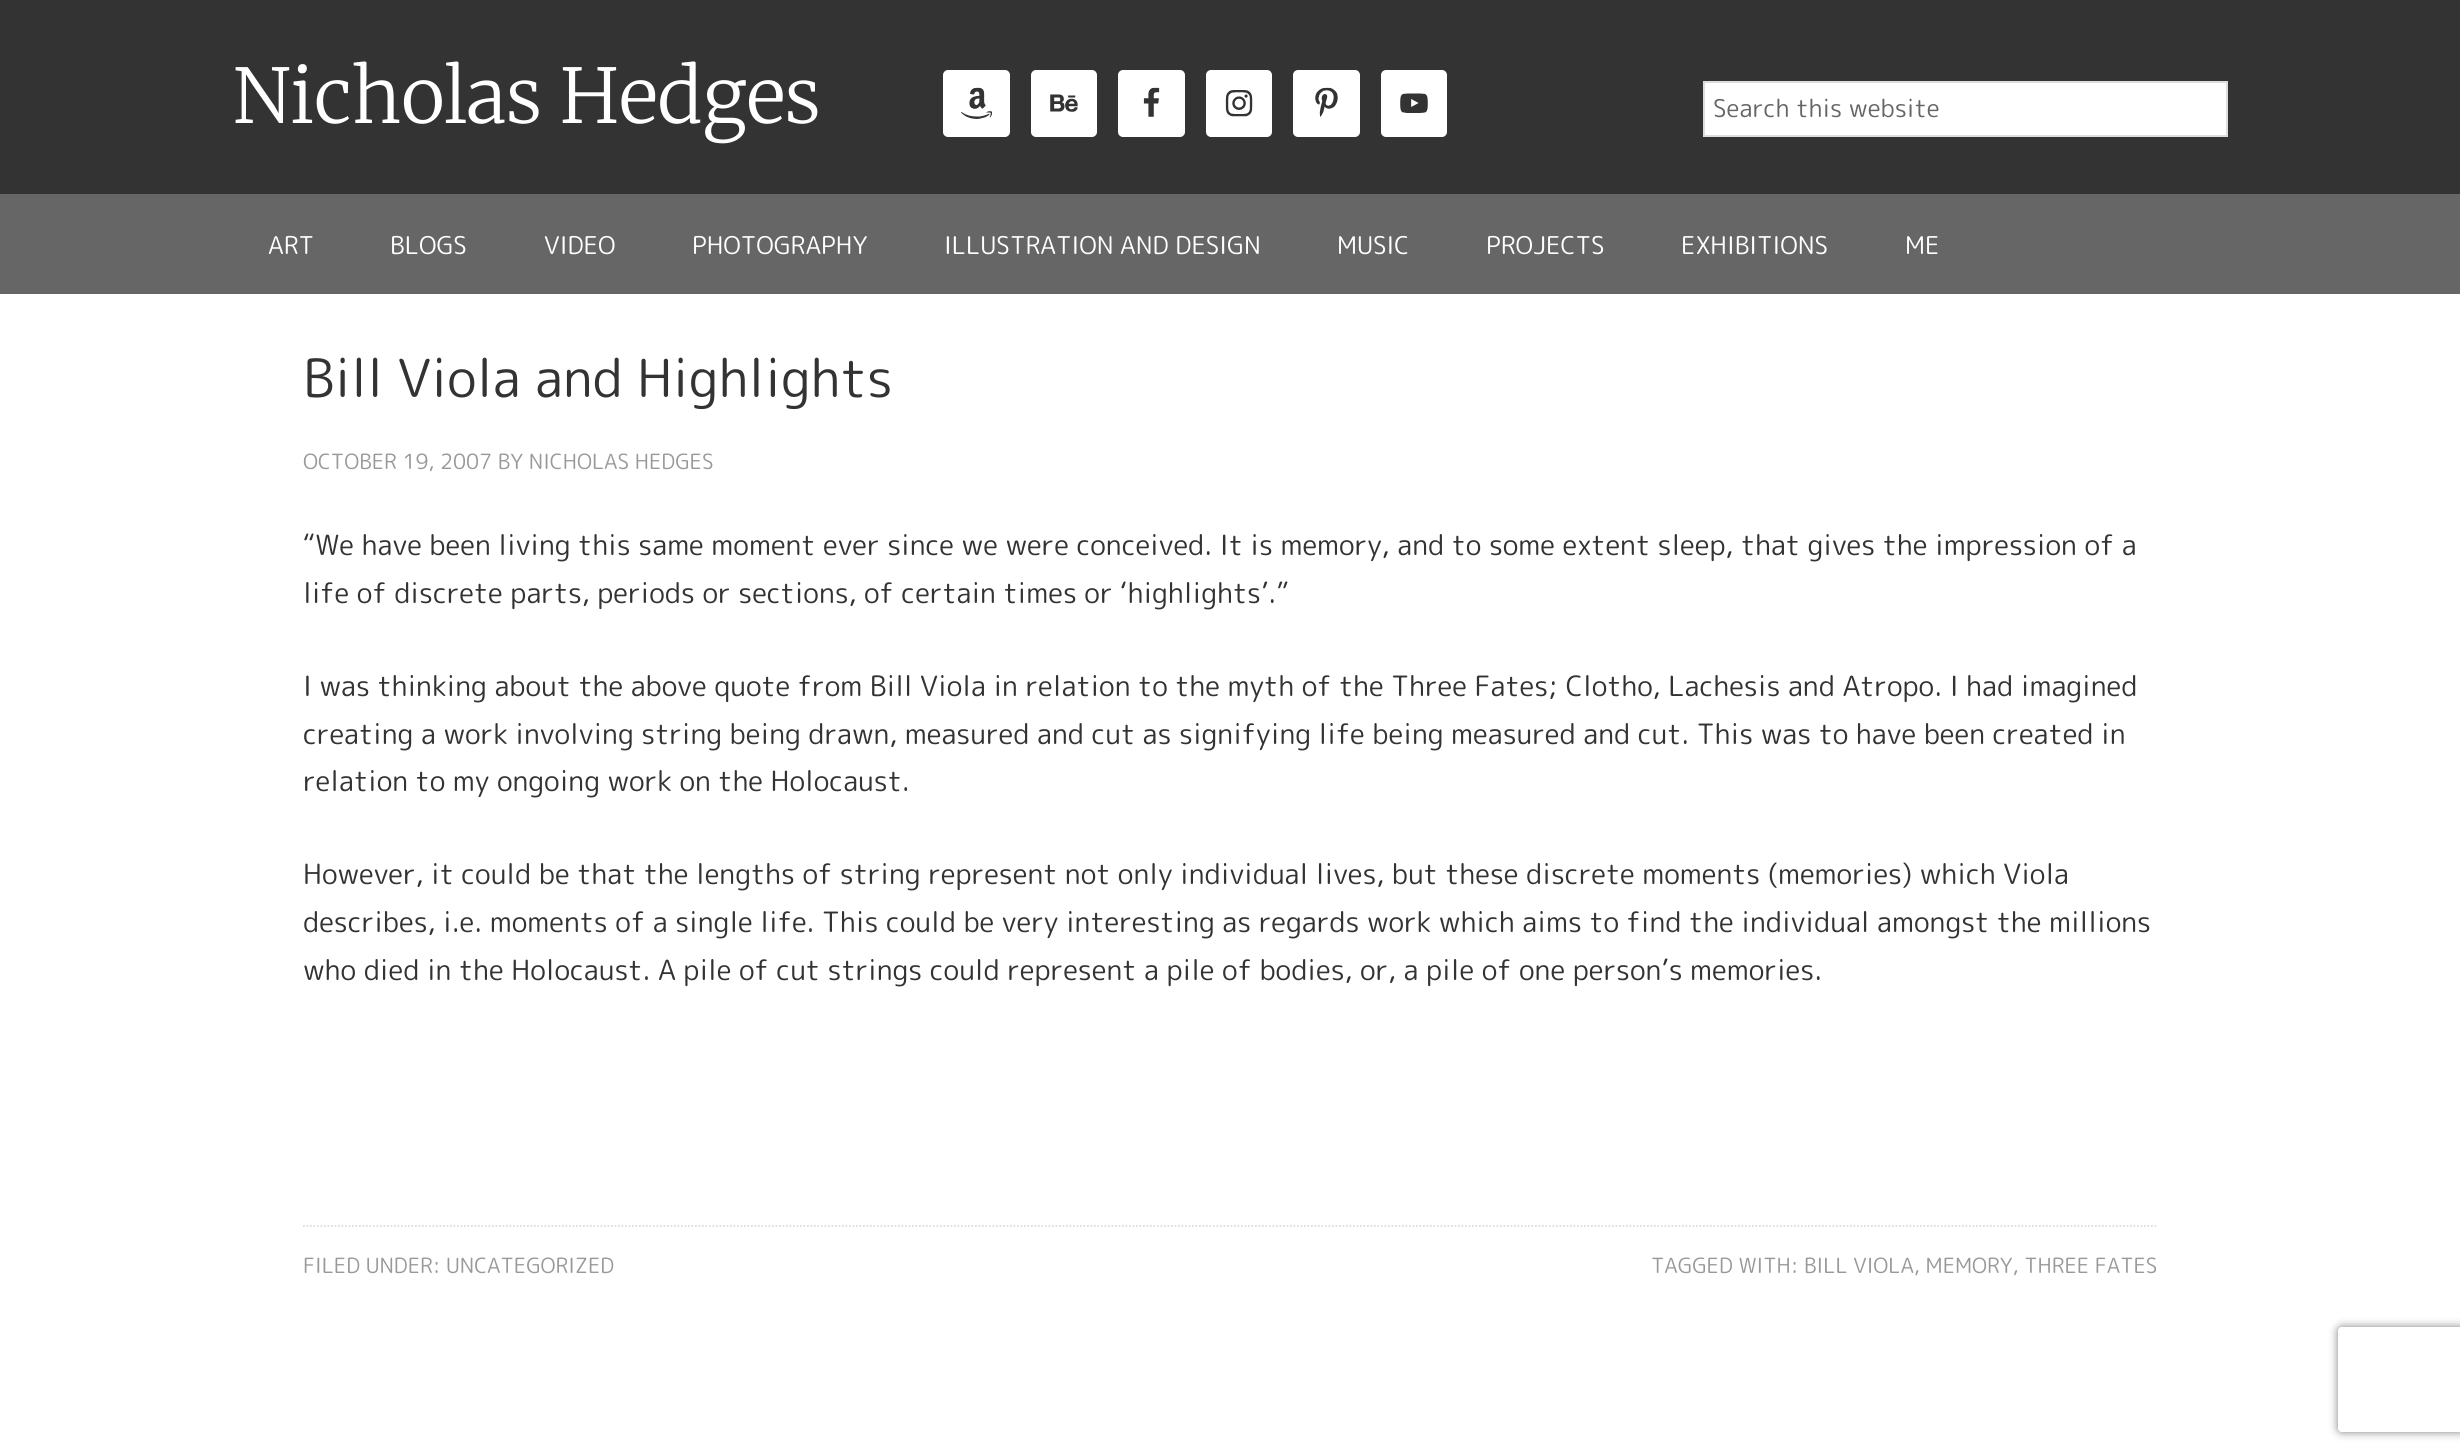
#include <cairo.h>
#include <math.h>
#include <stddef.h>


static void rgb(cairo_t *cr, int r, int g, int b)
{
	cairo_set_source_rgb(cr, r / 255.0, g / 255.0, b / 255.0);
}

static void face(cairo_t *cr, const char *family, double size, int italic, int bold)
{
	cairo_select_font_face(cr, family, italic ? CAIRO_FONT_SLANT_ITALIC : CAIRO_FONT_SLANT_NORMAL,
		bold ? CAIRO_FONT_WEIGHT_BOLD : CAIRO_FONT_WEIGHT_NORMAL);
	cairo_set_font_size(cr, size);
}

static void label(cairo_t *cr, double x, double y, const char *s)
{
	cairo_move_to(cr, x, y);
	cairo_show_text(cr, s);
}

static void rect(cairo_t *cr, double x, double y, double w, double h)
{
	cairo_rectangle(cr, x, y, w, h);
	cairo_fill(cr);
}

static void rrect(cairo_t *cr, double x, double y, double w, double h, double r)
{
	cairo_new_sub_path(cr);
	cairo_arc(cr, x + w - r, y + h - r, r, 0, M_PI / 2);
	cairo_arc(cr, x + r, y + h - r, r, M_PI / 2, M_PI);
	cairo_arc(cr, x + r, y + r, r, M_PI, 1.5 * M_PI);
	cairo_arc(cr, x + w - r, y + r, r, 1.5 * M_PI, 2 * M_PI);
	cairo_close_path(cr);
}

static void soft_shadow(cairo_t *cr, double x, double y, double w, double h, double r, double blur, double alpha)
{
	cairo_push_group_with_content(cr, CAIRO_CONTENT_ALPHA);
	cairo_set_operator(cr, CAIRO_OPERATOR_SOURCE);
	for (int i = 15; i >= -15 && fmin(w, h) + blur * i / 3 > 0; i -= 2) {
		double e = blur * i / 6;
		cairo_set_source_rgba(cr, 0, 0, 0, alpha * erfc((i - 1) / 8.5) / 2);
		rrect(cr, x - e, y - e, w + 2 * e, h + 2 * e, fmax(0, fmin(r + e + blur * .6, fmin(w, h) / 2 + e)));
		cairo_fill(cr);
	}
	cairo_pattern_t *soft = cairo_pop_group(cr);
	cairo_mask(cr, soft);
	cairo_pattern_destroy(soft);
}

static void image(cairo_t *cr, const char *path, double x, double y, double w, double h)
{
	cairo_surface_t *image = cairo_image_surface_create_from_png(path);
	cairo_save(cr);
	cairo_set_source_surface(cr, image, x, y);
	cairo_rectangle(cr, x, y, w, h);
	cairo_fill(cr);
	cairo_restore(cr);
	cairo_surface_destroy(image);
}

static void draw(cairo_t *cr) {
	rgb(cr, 255, 255, 255);
	cairo_paint(cr);
	rgb(cr, 51, 51, 51);
	rect(cr, 0, 0, 2460, 194);
	face(cr, "Merriweather Light", 75.25, 0, 0);
	rgb(cr, 255, 255, 255);
	label(cr, 233, 123, "Nicholas Hedges");
	rrect(cr, 944, 71, 65, 65, 4);
	cairo_fill_preserve(cr);
	cairo_stroke(cr);
	image(cr, "image0.png", 961, 87, 31, 32);
	rrect(cr, 1032, 71, 64, 65, 4);
	cairo_fill_preserve(cr);
	cairo_stroke(cr);
	image(cr, "image1.png", 1050, 94, 28, 18);
	rrect(cr, 1119, 71, 65, 65, 4);
	cairo_fill_preserve(cr);
	cairo_stroke(cr);
	image(cr, "image2.png", 1143, 87, 17, 30);
	rrect(cr, 1207, 71, 64, 65, 4);
	cairo_fill_preserve(cr);
	cairo_stroke(cr);
	image(cr, "image3.png", 1225, 90, 28, 27);
	rrect(cr, 1294, 71, 65, 65, 4);
	cairo_fill_preserve(cr);
	cairo_stroke(cr);
	image(cr, "image4.png", 1315, 87, 23, 30);
	rrect(cr, 1382, 71, 64, 65, 4);
	cairo_fill_preserve(cr);
	cairo_stroke(cr);
	image(cr, "image5.png", 1400, 93, 28, 20);
	cairo_rectangle(cr, 1704, 82, 523, 54);
	cairo_fill_preserve(cr);
	rgb(cr, 221, 221, 221);
	cairo_stroke(cr);
	face(cr, "Rounded Mplus 1c", 24.5, 0, 0);
	rgb(cr, 102, 102, 102);
	label(cr, 1713, 117, "Search this website");
	rect(cr, 0, 194, 2460, 100);
	rgb(cr, 255, 255, 255);
	label(cr, 268, 254, "ART");
	label(cr, 390, 254, "BLOGS");
	label(cr, 544, 254, "VIDEO");
	label(cr, 692, 254, "PHOTOGRAPHY");
	label(cr, 944, 254, "ILLUSTRATION AND DESIGN");
	label(cr, 1337, 254, "MUSIC");
	label(cr, 1486, 254, "PROJECTS");
	label(cr, 1681, 254, "EXHIBITIONS");
	label(cr, 1905, 254, "ME");
	face(cr, "Rounded Mplus 1c", 52.5, 0, 0);
	rgb(cr, 51, 51, 51);
	label(cr, 303, 397, "Bill Viola and Highlights");
	face(cr, "Rounded Mplus 1c", 21, 0, 0);
	rgb(cr, 153, 153, 153);
	label(cr, 303, 469, "OCTOBER 19, 2007 BY NICHOLAS HEDGES");
	face(cr, "Rounded Mplus 1c", 28, 0, 0);
	rgb(cr, 51, 51, 51);
	label(cr, 303, 555, "“We have been living this same moment ever since we were conceived. It is memory, and to some extent sleep, that gives the impression of a");
	label(cr, 303, 603, "life of discrete parts, periods or sections, of certain times or ‘highlights’.”");
	label(cr, 303, 696, "I was thinking about the above quote from Bill Viola in relation to the myth of the Three Fates; Clotho, Lachesis and Atropo. I had imagined");
	label(cr, 303, 744, "creating a work involving string being drawn, measured and cut as signifying life being measured and cut. This was to have been created in");
	label(cr, 303, 791, "relation to my ongoing work on the Holocaust.");
	label(cr, 303, 884, "However, it could be that the lengths of string represent not only individual lives, but these discrete moments (memories) which Viola");
	label(cr, 303, 932, "describes, i.e. moments of a single life. This could be very interesting as regards work which aims to find the individual amongst the millions");
	label(cr, 303, 980, "who died in the Holocaust. A pile of cut strings could represent a pile of bodies, or, a pile of one person’s memories.");
	cairo_new_path(cr);
	cairo_move_to(cr, 303, 1226);
	cairo_line_to(cr, 2158, 1226);
	rgb(cr, 221, 221, 221);
	cairo_set_line_width(cr, 1.8);
	cairo_set_dash(cr, (double[]){1.75, 1.75}, 2, 0);
	cairo_stroke(cr);
	face(cr, "Rounded Mplus 1c", 21, 0, 0);
	rgb(cr, 153, 153, 153);
	label(cr, 303, 1273, "FILED UNDER: UNCATEGORIZED");
	label(cr, 1651, 1273, "TAGGED WITH: BILL VIOLA, MEMORY, THREE FATES");
	cairo_save(cr);
	cairo_set_fill_rule(cr, CAIRO_FILL_RULE_EVEN_ODD);
	cairo_new_path(cr);
	cairo_move_to(cr, 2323, 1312);
	cairo_line_to(cr, 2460, 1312);
	cairo_line_to(cr, 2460, 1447);
	cairo_line_to(cr, 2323, 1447);
	cairo_close_path(cr);
	cairo_move_to(cr, 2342, 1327);
	cairo_line_to(cr, 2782, 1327);
	cairo_curve_to(cr, 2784, 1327, 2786, 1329, 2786, 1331);
	cairo_line_to(cr, 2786, 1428);
	cairo_curve_to(cr, 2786, 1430, 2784, 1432, 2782, 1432);
	cairo_line_to(cr, 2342, 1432);
	cairo_curve_to(cr, 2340, 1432, 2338, 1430, 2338, 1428);
	cairo_line_to(cr, 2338, 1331);
	cairo_curve_to(cr, 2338, 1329, 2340, 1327, 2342, 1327);
	cairo_close_path(cr);
	cairo_clip(cr);
	rgb(cr, 128, 128, 128);
	soft_shadow(cr, 2338, 1327, 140, 105, 4, 4.5, 1);
	cairo_restore(cr);
}

int main(void) {
	cairo_surface_t *surface = cairo_image_surface_create(CAIRO_FORMAT_RGB24, 2460, 1456);
	cairo_t *cr = cairo_create(surface);
	cairo_font_options_t *options = cairo_font_options_create();
	cairo_font_options_set_hint_metrics(options, CAIRO_HINT_METRICS_OFF);
	cairo_font_options_set_hint_style(options, CAIRO_HINT_STYLE_NONE);
	cairo_set_font_options(cr, options);
	cairo_set_miter_limit(cr, 4);
	draw(cr);
	cairo_surface_write_to_png(surface, "render.png");
	cairo_font_options_destroy(options);
	cairo_destroy(cr);
	cairo_surface_destroy(surface);
	return 0;
}
